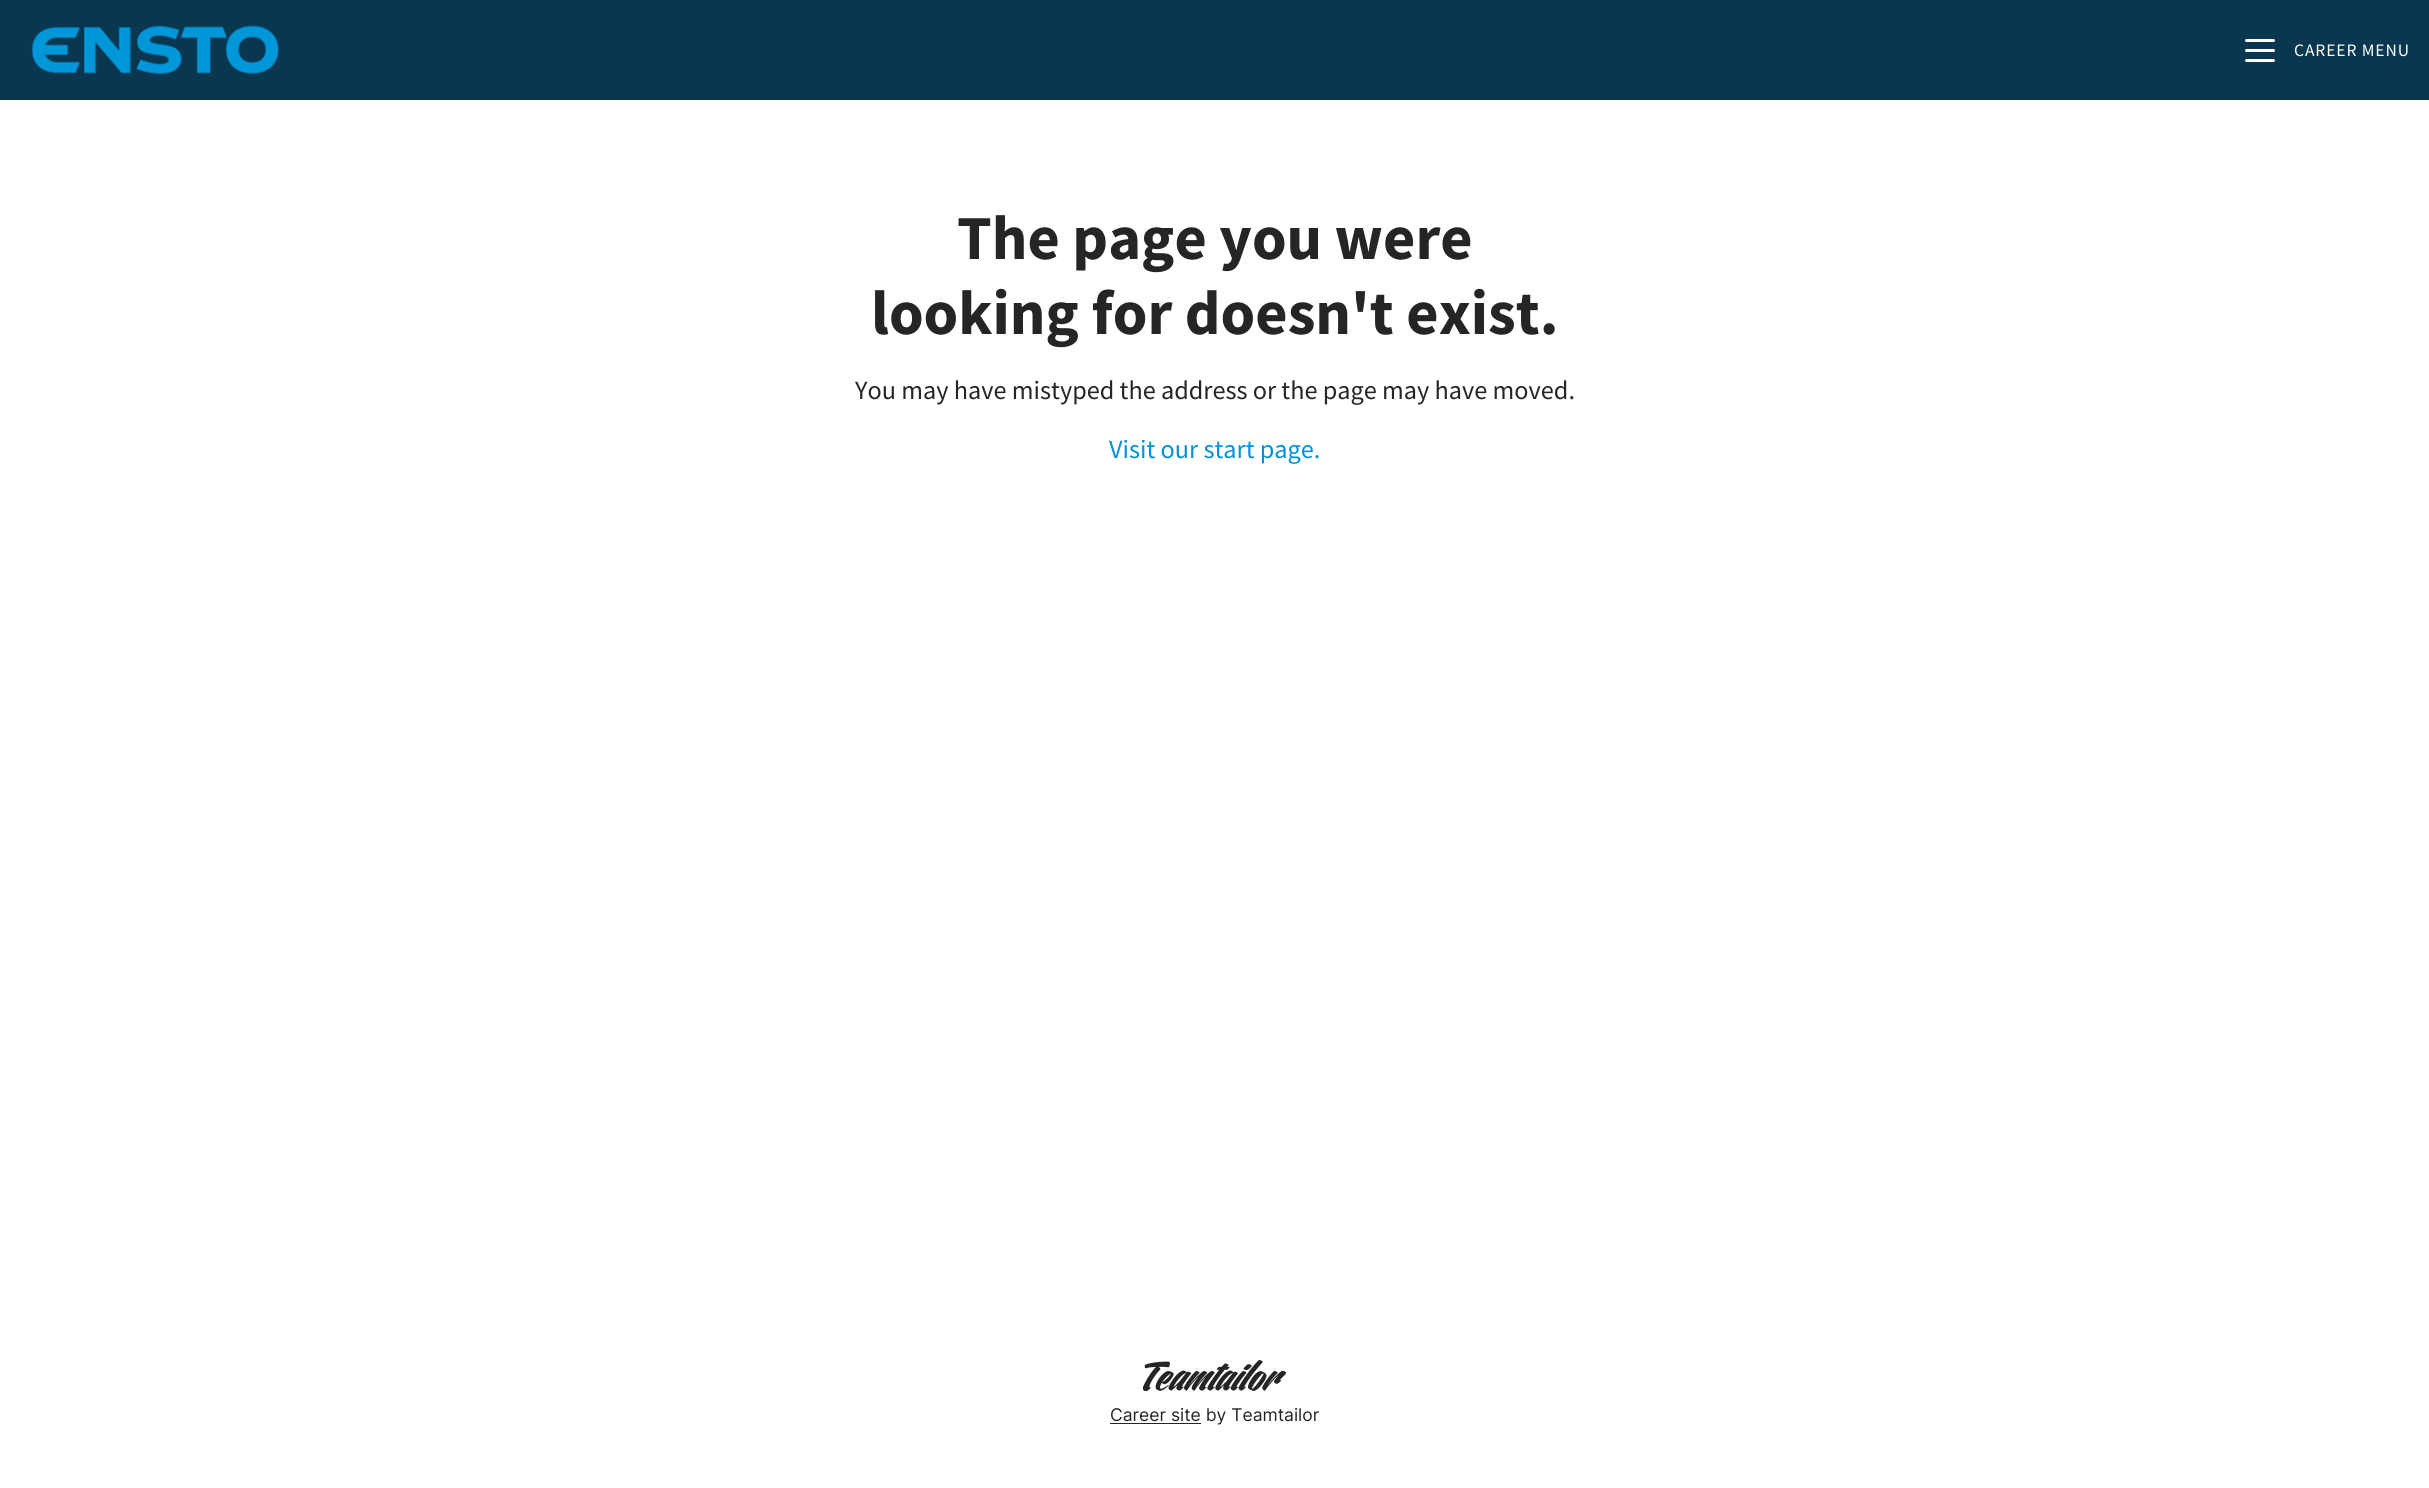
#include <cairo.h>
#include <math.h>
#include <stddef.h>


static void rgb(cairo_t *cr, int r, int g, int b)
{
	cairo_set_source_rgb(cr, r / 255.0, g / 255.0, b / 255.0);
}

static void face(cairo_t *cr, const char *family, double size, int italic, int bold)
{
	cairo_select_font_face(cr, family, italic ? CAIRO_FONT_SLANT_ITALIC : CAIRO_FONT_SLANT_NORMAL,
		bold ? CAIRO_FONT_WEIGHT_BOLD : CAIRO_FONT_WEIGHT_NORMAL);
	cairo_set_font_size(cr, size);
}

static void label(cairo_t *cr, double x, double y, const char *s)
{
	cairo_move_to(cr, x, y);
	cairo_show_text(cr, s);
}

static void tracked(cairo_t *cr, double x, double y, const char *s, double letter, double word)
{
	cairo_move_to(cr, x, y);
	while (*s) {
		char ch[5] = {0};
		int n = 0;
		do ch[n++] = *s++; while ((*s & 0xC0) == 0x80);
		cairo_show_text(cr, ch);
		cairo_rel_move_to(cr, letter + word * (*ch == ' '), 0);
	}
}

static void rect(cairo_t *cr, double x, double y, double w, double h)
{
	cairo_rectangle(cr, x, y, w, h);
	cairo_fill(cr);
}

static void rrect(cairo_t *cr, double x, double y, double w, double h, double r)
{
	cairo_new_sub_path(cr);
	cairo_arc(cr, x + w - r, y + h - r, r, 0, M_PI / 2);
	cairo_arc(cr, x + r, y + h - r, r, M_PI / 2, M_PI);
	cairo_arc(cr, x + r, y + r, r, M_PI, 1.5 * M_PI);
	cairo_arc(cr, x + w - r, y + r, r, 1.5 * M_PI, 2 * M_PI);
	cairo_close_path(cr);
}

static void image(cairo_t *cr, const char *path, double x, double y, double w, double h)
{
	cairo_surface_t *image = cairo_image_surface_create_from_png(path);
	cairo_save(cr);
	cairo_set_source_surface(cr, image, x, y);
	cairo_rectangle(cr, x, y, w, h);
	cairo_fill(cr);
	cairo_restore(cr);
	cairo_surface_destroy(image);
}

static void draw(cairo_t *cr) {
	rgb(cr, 255, 255, 255);
	cairo_paint(cr);
	rgb(cr, 9, 55, 79);
	rect(cr, 0, 0, 2429, 100);
	image(cr, "image0.png", 31, 25, 248, 50);
	rgb(cr, 255, 255, 255);
	rrect(cr, 2245, 39, 30, 3, 1.5);
	cairo_fill(cr);
	rrect(cr, 2245, 49, 30, 3, 1.5);
	cairo_fill(cr);
	rrect(cr, 2245, 59, 30, 3, 1.5);
	cairo_fill(cr);
	face(cr, "Source Sans Pro", 17.5, 0, 0);
	tracked(cr, 2294, 56, "CAREER MENU", 0.9, 0);
	face(cr, "Source Sans Pro", 62.5, 0, 1);
	rgb(cr, 37, 37, 37);
	label(cr, 957, 259, "The page you were");
	label(cr, 871, 334, "looking for doesn't exist.");
	face(cr, "Source Sans Pro", 26.25, 0, 0);
	label(cr, 855, 399, "You may have mistyped the address or the page may have moved.");
	rgb(cr, 0, 143, 219);
	label(cr, 1109, 458, "Visit our start page.");
	image(cr, "image1.png", 1143, 1360, 143, 31);
	rgb(cr, 37, 37, 37);
	rect(cr, 1110, 1423, 91, 1);
	face(cr, "Inter", 17.5, 0, 0);
	label(cr, 1110, 1421, "Career site by Teamtailor");
}

int main(void) {
	cairo_surface_t *surface = cairo_image_surface_create(CAIRO_FORMAT_RGB24, 2429, 1488);
	cairo_t *cr = cairo_create(surface);
	cairo_font_options_t *options = cairo_font_options_create();
	cairo_font_options_set_hint_metrics(options, CAIRO_HINT_METRICS_OFF);
	cairo_font_options_set_hint_style(options, CAIRO_HINT_STYLE_NONE);
	cairo_set_font_options(cr, options);
	cairo_set_miter_limit(cr, 4);
	draw(cr);
	cairo_surface_write_to_png(surface, "render.png");
	cairo_font_options_destroy(options);
	cairo_destroy(cr);
	cairo_surface_destroy(surface);
	return 0;
}
